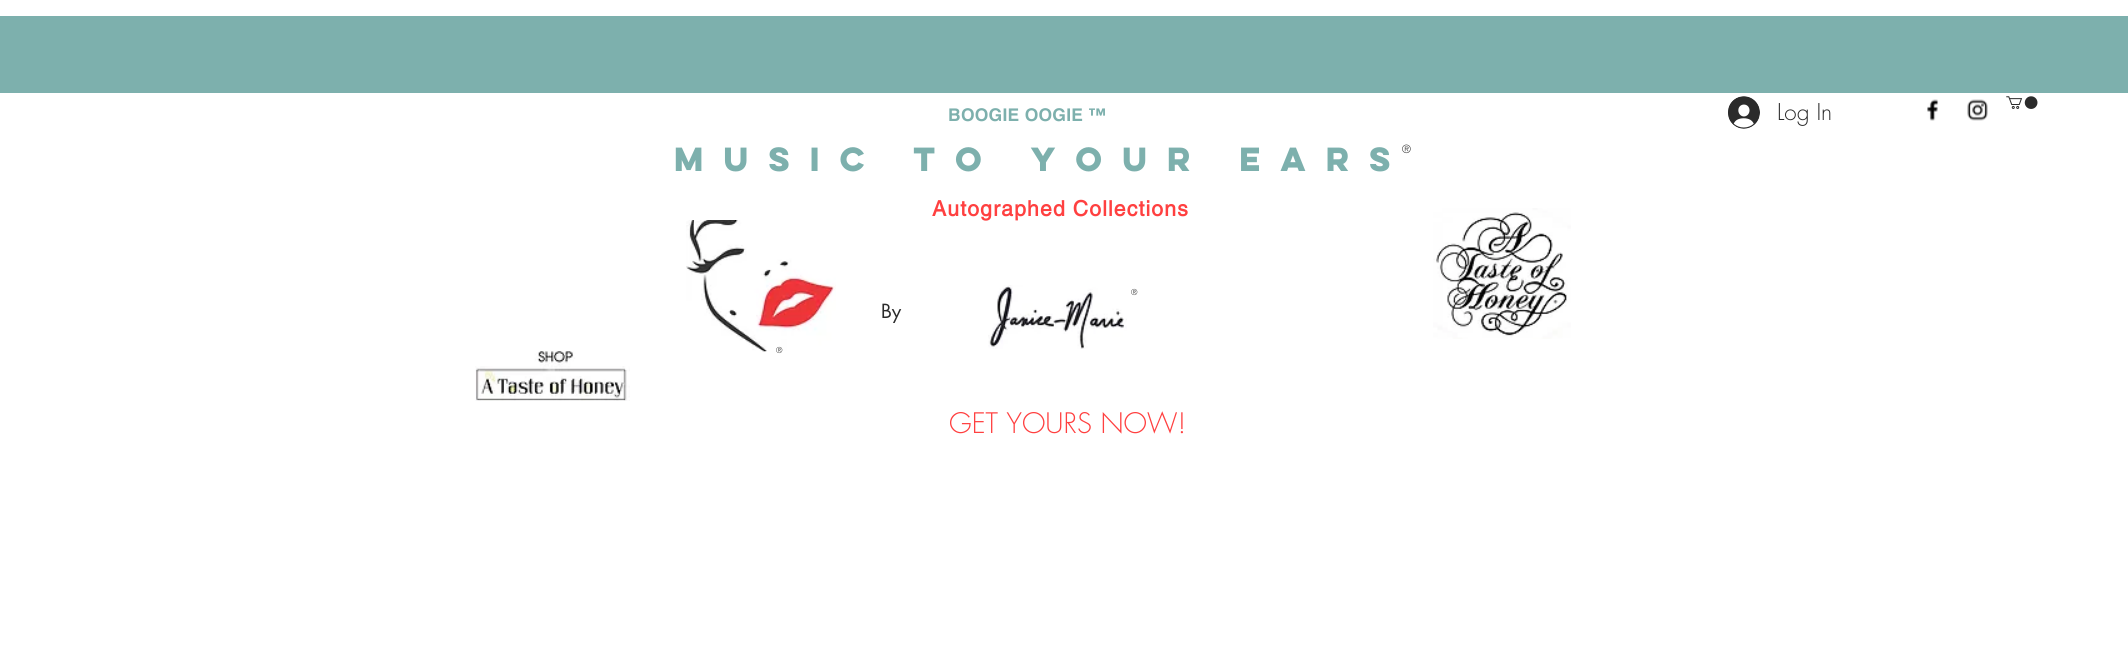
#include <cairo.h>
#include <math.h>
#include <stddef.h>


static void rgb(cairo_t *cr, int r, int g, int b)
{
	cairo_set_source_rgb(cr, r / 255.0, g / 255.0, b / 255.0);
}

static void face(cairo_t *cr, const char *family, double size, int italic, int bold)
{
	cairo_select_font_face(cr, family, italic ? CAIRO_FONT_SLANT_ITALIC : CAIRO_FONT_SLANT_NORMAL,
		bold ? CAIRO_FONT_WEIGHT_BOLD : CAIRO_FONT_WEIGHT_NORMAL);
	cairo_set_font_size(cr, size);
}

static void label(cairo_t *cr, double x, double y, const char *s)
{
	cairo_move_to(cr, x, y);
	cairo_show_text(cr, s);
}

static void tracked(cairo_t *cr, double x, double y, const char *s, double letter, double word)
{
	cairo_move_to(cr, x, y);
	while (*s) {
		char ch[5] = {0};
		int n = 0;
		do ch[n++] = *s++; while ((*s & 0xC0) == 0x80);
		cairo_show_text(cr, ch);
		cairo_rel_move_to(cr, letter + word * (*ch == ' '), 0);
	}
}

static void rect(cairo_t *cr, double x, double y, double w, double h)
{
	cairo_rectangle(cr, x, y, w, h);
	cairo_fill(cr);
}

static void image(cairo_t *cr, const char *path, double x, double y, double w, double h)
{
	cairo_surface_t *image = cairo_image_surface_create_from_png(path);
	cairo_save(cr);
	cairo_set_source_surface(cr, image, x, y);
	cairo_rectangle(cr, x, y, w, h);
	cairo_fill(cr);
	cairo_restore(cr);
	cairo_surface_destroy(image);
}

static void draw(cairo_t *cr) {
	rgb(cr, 255, 255, 255);
	cairo_paint(cr);
	rgb(cr, 125, 176, 173);
	rect(cr, 0, 16, 2128, 77);
	face(cr, "helvetica", 17.5, 0, 1);
	tracked(cr, 948, 121, "BOOGIE OOGIE ™", 0.25, 0);
	face(cr, "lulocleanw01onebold", 30, 0, 1);
	tracked(cr, 674, 171, "Music To Your Ears", 13.5, 0);
	face(cr, "futura Light", 11, 0, 0);
	rgb(cr, 43, 43, 43);
	label(cr, 1402, 153, "®");
	image(cr, "image0.png", 686, 220, 150, 132);
	face(cr, "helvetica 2", 21.25, 0, 1);
	rgb(cr, 255, 64, 64);
	tracked(cr, 932, 216, "Autographed Collections", 1.1, 0);
	image(cr, "image1.png", 1433, 208, 138, 131);
	image(cr, "image2.png", 988, 285, 139, 64);
	face(cr, "futura Light", 8, 0, 0);
	rgb(cr, 43, 43, 43);
	label(cr, 1131, 295, "®");
	face(cr, "futura", 19, 0, 0);
	label(cr, 881, 318, "By");
	image(cr, "image3.png", 475, 351, 155, 50);
	face(cr, "futura Light", 8, 0, 0);
	label(cr, 776, 353, "®");
	face(cr, "futura Light", 27.5, 0, 0);
	rgb(cr, 255, 64, 64);
	label(cr, 949, 433, "GET YOURS NOW!");
	image(cr, "image4.png", 1728, 96, 32, 33);
	face(cr, "futura Light", 22.5, 0, 0);
	rgb(cr, 43, 43, 43);
	label(cr, 1777, 120, "Log In");
	image(cr, "image5.png", 1927, 99, 12, 22);
	image(cr, "image6.png", 1967, 99, 21, 22);
	image(cr, "image7.png", 2006, 96, 32, 13);
}

int main(void) {
	cairo_surface_t *surface = cairo_image_surface_create(CAIRO_FORMAT_RGB24, 2128, 646);
	cairo_t *cr = cairo_create(surface);
	cairo_font_options_t *options = cairo_font_options_create();
	cairo_font_options_set_hint_metrics(options, CAIRO_HINT_METRICS_OFF);
	cairo_font_options_set_hint_style(options, CAIRO_HINT_STYLE_NONE);
	cairo_set_font_options(cr, options);
	cairo_set_miter_limit(cr, 4);
	draw(cr);
	cairo_surface_write_to_png(surface, "render.png");
	cairo_font_options_destroy(options);
	cairo_destroy(cr);
	cairo_surface_destroy(surface);
	return 0;
}
